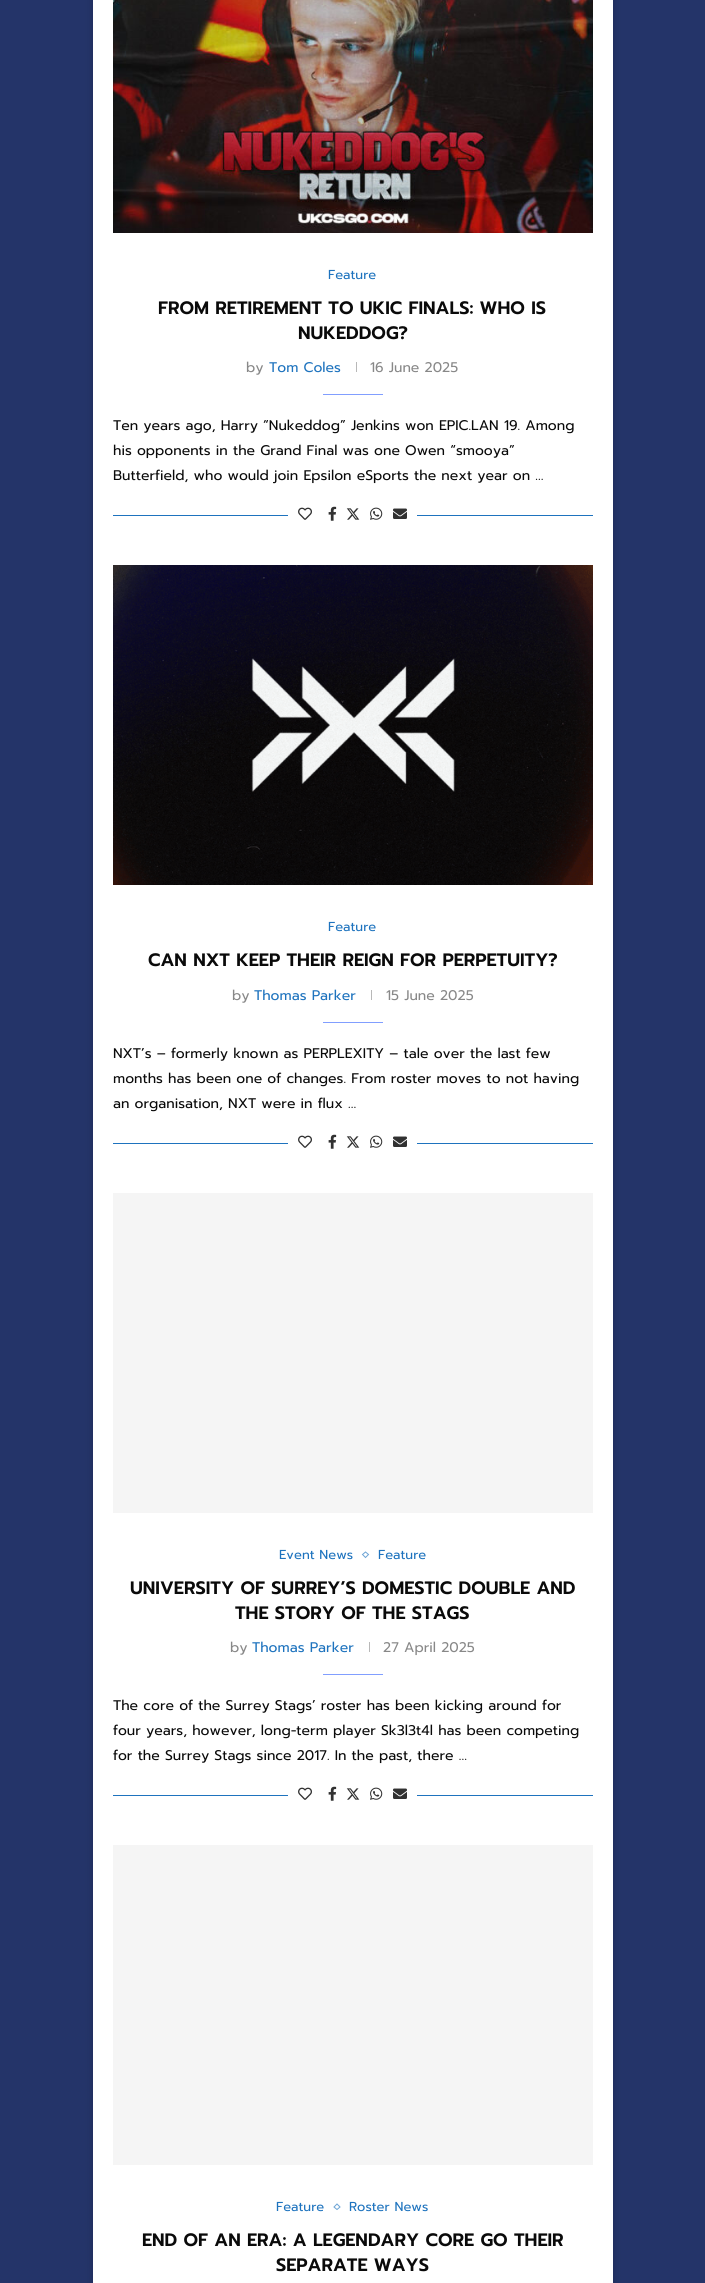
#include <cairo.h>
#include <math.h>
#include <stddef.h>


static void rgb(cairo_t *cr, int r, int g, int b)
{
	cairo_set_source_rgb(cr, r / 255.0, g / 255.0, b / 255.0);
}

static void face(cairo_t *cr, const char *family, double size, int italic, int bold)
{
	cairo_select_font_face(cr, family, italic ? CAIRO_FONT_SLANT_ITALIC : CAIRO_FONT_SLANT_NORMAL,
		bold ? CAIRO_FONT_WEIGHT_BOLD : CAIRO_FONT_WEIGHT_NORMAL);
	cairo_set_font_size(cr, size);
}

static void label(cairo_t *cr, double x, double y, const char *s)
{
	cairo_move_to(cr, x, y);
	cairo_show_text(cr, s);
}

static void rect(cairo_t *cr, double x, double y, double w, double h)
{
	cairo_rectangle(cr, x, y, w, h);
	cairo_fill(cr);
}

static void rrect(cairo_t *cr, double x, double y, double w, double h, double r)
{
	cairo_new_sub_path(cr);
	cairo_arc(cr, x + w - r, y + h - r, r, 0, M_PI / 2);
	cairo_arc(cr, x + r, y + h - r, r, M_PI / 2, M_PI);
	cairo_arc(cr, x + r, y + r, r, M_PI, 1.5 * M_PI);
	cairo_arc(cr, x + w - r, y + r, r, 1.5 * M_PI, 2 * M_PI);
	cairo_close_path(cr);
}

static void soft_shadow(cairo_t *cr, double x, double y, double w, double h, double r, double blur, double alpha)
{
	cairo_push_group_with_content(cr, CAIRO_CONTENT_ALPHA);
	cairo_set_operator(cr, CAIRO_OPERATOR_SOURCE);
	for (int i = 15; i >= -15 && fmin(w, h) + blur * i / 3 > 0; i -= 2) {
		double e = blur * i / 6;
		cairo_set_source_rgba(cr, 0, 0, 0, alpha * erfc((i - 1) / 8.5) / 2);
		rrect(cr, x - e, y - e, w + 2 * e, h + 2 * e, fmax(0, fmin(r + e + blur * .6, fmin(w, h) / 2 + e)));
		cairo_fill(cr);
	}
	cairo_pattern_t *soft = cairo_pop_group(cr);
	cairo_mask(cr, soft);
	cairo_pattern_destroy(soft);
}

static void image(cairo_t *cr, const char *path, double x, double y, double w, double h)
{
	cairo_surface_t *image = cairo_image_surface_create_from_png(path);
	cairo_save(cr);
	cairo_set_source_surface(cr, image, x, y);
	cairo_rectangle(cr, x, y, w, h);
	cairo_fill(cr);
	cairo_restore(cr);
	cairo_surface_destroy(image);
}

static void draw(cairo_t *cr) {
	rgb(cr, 36, 52, 105);
	cairo_paint(cr);
	rgb(cr, 0, 0, 0);
	soft_shadow(cr, 93, -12, 520, 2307, 0, 4, 0.2);
	rgb(cr, 255, 255, 255);
	rect(cr, 93, 0, 520, 2283);
	image(cr, "image0.png", 113, 0, 480, 233);
	face(cr, "Prompt", 13, 0, 0);
	rgb(cr, 30, 115, 190);
	label(cr, 328, 279, "Feature");
	face(cr, "Prompt SemiBold", 18, 0, 0);
	rgb(cr, 10, 10, 10);
	label(cr, 158, 314, "FROM RETIREMENT TO UKIC FINALS: WHO IS");
	label(cr, 298, 339, "NUKEDDOG?");
	face(cr, "Prompt", 14, 0, 0);
	rgb(cr, 136, 136, 136);
	label(cr, 246, 372, "by");
	rgb(cr, 30, 115, 190);
	label(cr, 269, 372, "Tom Coles");
	rgb(cr, 184, 184, 184);
	rect(cr, 356, 362, 1, 10);
	rgb(cr, 136, 136, 136);
	label(cr, 370, 372, "16 June 2025");
	rgb(cr, 129, 158, 255);
	rect(cr, 323, 394, 60, 1);
	rgb(cr, 10, 10, 10);
	label(cr, 113, 430, "Ten years ago, Harry “Nukeddog” Jenkins won EPIC.LAN 19. Among");
	label(cr, 113, 455, "his opponents in the Grand Final was one Owen “smooya”");
	label(cr, 113, 480, "Butterfield, who would join Epsilon eSports the next year on …");
	rgb(cr, 30, 115, 190);
	rect(cr, 113, 515, 480, 1);
	rgb(cr, 255, 255, 255);
	rect(cr, 288, 515, 129, 1);
	image(cr, "image1.png", 298, 507, 14, 13);
	image(cr, "image2.png", 328, 506, 9, 15);
	image(cr, "image3.png", 346, 508, 14, 12);
	image(cr, "image4.png", 370, 507, 13, 13);
	image(cr, "image5.png", 393, 508, 14, 11);
	image(cr, "image6.png", 113, 565, 480, 320);
	face(cr, "Prompt", 13, 0, 0);
	rgb(cr, 30, 115, 190);
	label(cr, 328, 931, "Feature");
	face(cr, "Prompt SemiBold", 18, 0, 0);
	rgb(cr, 10, 10, 10);
	label(cr, 148, 966, "CAN NXT KEEP THEIR REIGN FOR PERPETUITY?");
	face(cr, "Prompt", 14, 0, 0);
	rgb(cr, 136, 136, 136);
	label(cr, 232, 1000, "by");
	rgb(cr, 30, 115, 190);
	label(cr, 254, 1000, "Thomas Parker");
	rgb(cr, 184, 184, 184);
	rect(cr, 371, 990, 1, 10);
	rgb(cr, 136, 136, 136);
	label(cr, 386, 1000, "15 June 2025");
	rgb(cr, 129, 158, 255);
	rect(cr, 323, 1022, 60, 1);
	rgb(cr, 10, 10, 10);
	label(cr, 113, 1058, "NXT’s – formerly known as PERPLEXITY – tale over the last few");
	label(cr, 113, 1083, "months has been one of changes. From roster moves to not having");
	label(cr, 113, 1108, "an organisation, NXT were in flux …");
	rgb(cr, 30, 115, 190);
	rect(cr, 113, 1143, 480, 1);
	rgb(cr, 255, 255, 255);
	rect(cr, 288, 1143, 129, 1);
	image(cr, "image1.png", 298, 1135, 14, 13);
	image(cr, "image2.png", 328, 1134, 9, 15);
	image(cr, "image3.png", 346, 1136, 14, 12);
	image(cr, "image4.png", 370, 1135, 13, 13);
	image(cr, "image5.png", 393, 1136, 14, 11);
	rgb(cr, 245, 245, 245);
	rect(cr, 113, 1193, 480, 320);
	face(cr, "Prompt", 13, 0, 0);
	rgb(cr, 30, 115, 190);
	label(cr, 279, 1559, "Event News");
	cairo_new_path(cr);
	cairo_move_to(cr, 365.5, 1552);
	cairo_line_to(cr, 368.5, 1554.5);
	cairo_line_to(cr, 365.5, 1557.5);
	cairo_line_to(cr, 362.5, 1554.5);
	cairo_close_path(cr);
	rgb(cr, 109, 164, 213);
	cairo_set_line_width(cr, 1);
	cairo_stroke(cr);
	rgb(cr, 30, 115, 190);
	label(cr, 378, 1559, "Feature");
	face(cr, "Prompt SemiBold", 18, 0, 0);
	rgb(cr, 10, 10, 10);
	label(cr, 130, 1594, "UNIVERSITY OF SURREY’S DOMESTIC DOUBLE AND");
	label(cr, 235, 1619, "THE STORY OF THE STAGS");
	face(cr, "Prompt", 14, 0, 0);
	rgb(cr, 136, 136, 136);
	label(cr, 230, 1652, "by");
	rgb(cr, 30, 115, 190);
	label(cr, 252, 1652, "Thomas Parker");
	rgb(cr, 184, 184, 184);
	rect(cr, 369, 1642, 1, 10);
	rgb(cr, 136, 136, 136);
	label(cr, 383, 1652, "27 April 2025");
	rgb(cr, 129, 158, 255);
	rect(cr, 323, 1674, 60, 1);
	rgb(cr, 10, 10, 10);
	label(cr, 113, 1710, "The core of the Surrey Stags’ roster has been kicking around for");
	label(cr, 113, 1735, "four years, however, long-term player Sk3l3t4l has been competing");
	label(cr, 113, 1760, "for the Surrey Stags since 2017. In the past, there …");
	rgb(cr, 30, 115, 190);
	rect(cr, 113, 1795, 480, 1);
	rgb(cr, 255, 255, 255);
	rect(cr, 288, 1795, 129, 1);
	image(cr, "image1.png", 298, 1787, 14, 13);
	image(cr, "image2.png", 328, 1786, 9, 15);
	image(cr, "image3.png", 346, 1788, 14, 12);
	image(cr, "image4.png", 370, 1787, 13, 13);
	image(cr, "image5.png", 393, 1788, 14, 11);
	rgb(cr, 245, 245, 245);
	rect(cr, 113, 1845, 480, 320);
	face(cr, "Prompt", 13, 0, 0);
	rgb(cr, 30, 115, 190);
	label(cr, 276, 2211, "Feature");
	cairo_new_path(cr);
	cairo_move_to(cr, 337, 2204);
	cairo_line_to(cr, 340, 2207);
	cairo_line_to(cr, 337, 2209.5);
	cairo_line_to(cr, 334, 2207);
	cairo_close_path(cr);
	rgb(cr, 109, 164, 213);
	cairo_stroke(cr);
	rgb(cr, 30, 115, 190);
	label(cr, 349, 2211, "Roster News");
	face(cr, "Prompt SemiBold", 18, 0, 0);
	rgb(cr, 10, 10, 10);
	label(cr, 142, 2246, "END OF AN ERA: A LEGENDARY CORE GO THEIR");
	label(cr, 276, 2271, "SEPARATE WAYS");
}

int main(void) {
	cairo_surface_t *surface = cairo_image_surface_create(CAIRO_FORMAT_RGB24, 705, 2283);
	cairo_t *cr = cairo_create(surface);
	cairo_font_options_t *options = cairo_font_options_create();
	cairo_font_options_set_hint_metrics(options, CAIRO_HINT_METRICS_OFF);
	cairo_font_options_set_hint_style(options, CAIRO_HINT_STYLE_NONE);
	cairo_set_font_options(cr, options);
	cairo_set_miter_limit(cr, 4);
	draw(cr);
	cairo_surface_write_to_png(surface, "render.png");
	cairo_font_options_destroy(options);
	cairo_destroy(cr);
	cairo_surface_destroy(surface);
	return 0;
}
